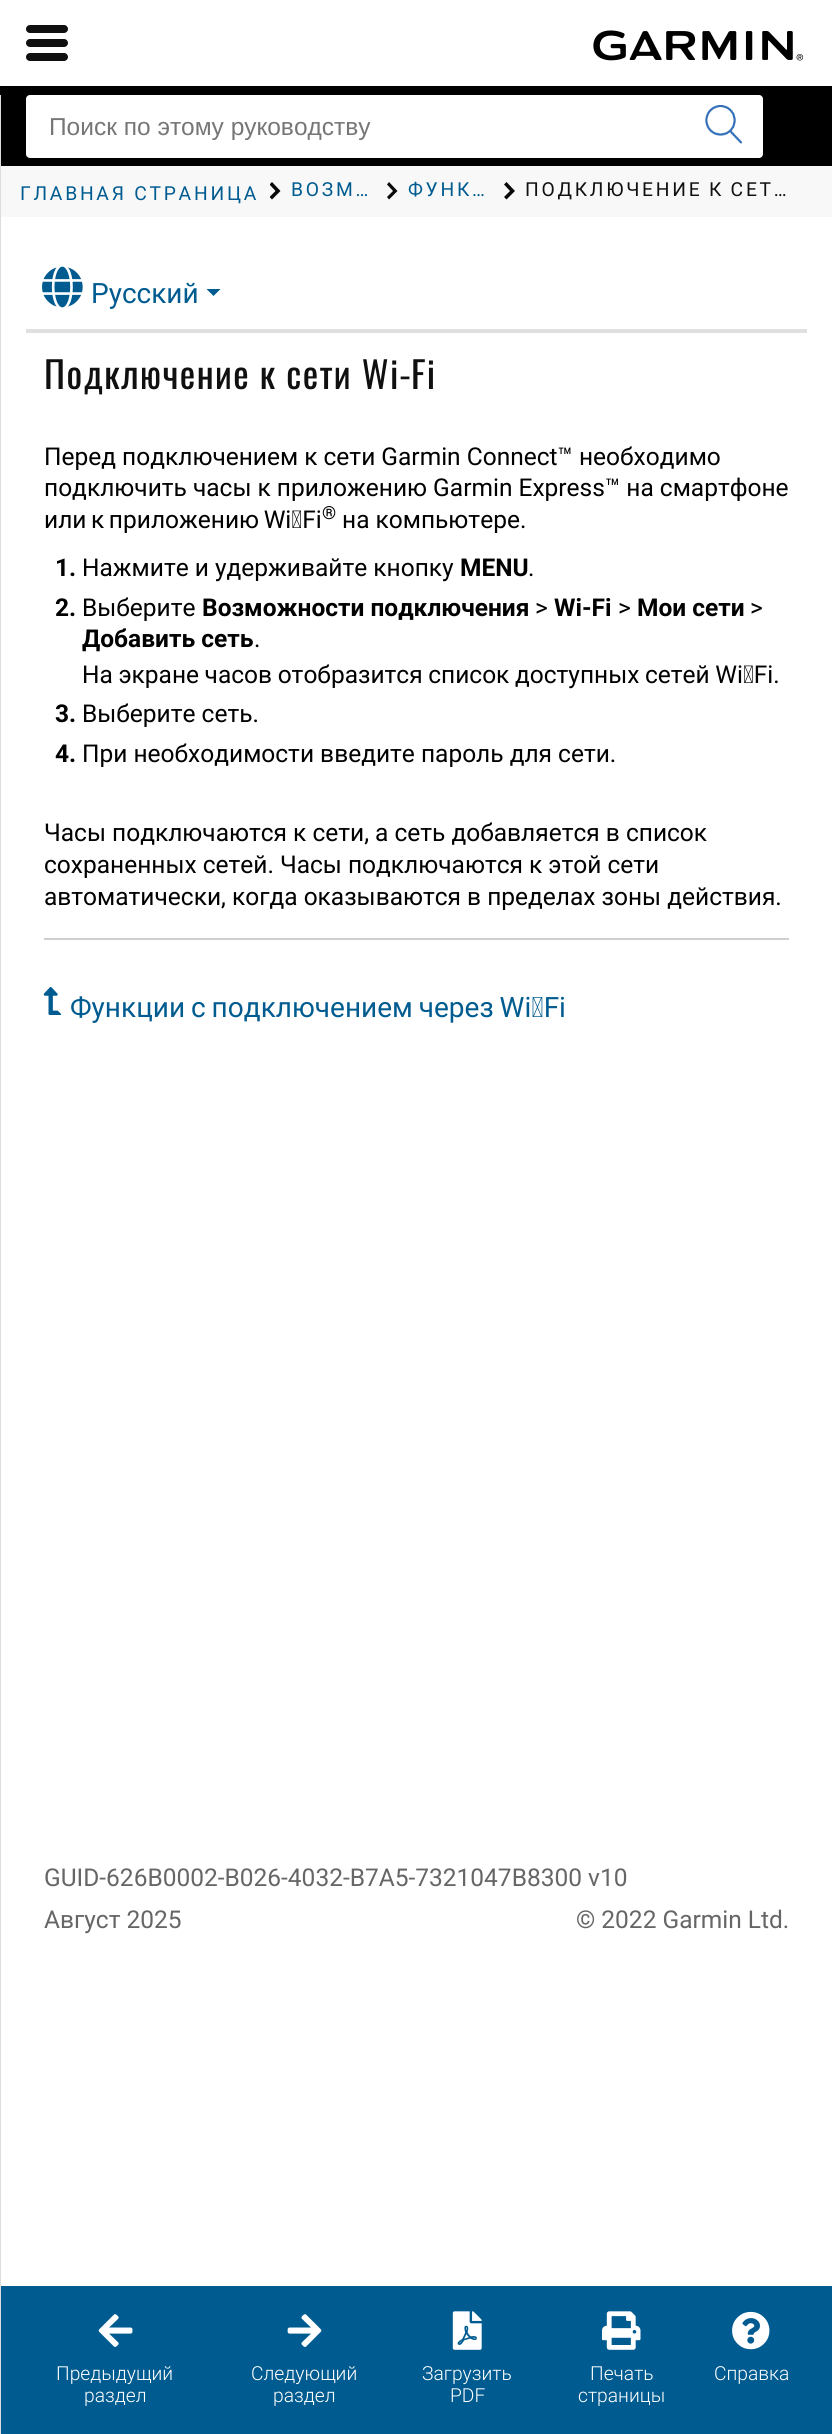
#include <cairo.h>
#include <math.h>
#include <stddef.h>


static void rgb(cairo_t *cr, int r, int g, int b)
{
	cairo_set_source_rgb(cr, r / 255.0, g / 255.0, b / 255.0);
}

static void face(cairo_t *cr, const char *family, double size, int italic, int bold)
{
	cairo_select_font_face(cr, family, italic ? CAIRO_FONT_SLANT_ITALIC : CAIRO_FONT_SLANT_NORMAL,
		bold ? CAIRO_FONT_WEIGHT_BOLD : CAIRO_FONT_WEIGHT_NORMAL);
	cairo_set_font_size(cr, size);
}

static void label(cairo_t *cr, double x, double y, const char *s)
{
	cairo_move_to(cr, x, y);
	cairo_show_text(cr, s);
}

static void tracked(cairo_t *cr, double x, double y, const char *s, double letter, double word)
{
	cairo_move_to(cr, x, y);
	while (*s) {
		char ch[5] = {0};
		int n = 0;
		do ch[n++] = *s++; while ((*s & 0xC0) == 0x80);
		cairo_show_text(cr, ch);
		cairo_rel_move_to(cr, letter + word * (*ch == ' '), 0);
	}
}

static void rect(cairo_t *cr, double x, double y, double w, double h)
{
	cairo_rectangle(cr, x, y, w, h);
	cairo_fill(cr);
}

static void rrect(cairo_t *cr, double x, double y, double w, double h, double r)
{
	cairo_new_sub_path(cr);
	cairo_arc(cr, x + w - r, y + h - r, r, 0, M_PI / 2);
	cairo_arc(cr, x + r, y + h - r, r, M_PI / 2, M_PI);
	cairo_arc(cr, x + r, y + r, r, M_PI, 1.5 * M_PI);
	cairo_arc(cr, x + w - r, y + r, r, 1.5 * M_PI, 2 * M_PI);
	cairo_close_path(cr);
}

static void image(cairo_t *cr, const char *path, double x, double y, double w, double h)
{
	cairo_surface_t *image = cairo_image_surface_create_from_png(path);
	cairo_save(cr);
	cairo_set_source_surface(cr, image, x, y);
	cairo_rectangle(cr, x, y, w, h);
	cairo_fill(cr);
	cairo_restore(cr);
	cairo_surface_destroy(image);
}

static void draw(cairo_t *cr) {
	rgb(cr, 255, 255, 255);
	cairo_paint(cr);
	rgb(cr, 16, 16, 16);
	rrect(cr, 26, 25, 42, 8, 4);
	cairo_fill(cr);
	rrect(cr, 26, 39, 42, 8, 4);
	cairo_fill(cr);
	rrect(cr, 26, 53, 42, 8, 4);
	cairo_fill(cr);
	image(cr, "image0.png", 593, 30, 210, 31);
	rgb(cr, 0, 0, 0);
	rect(cr, 0, 86, 832, 80);
	rgb(cr, 255, 255, 255);
	rrect(cr, 26, 95, 737, 63, 4);
	cairo_fill(cr);
	cairo_save(cr);
	cairo_rectangle(cr, 49, 112, 663, 28);
	cairo_clip(cr);
	face(cr, "Liberation Sans", 24.5, 0, 0);
	rgb(cr, 118, 118, 118);
	label(cr, 49, 135, "Поиск по этому руководству");
	cairo_restore(cr);
	image(cr, "image1.png", 705, 105, 37, 39);
	rgb(cr, 248, 248, 248);
	rect(cr, 1, 166, 831, 51);
	face(cr, "Roboto", 19.25, 0, 0);
	rgb(cr, 0, 92, 144);
	tracked(cr, 20, 200, "ГЛАВНАЯ СТРАНИЦА", 2.75, 0);
	cairo_save(cr);
	cairo_rectangle(cr, 270, 182, 12, 18);
	cairo_clip(cr);
	rgb(cr, 9, 9, 9);
	cairo_new_path(cr);
	cairo_move_to(cr, 275.5, 191);
	cairo_line_to(cr, 269.5, 197);
	cairo_line_to(cr, 272, 199.5);
	cairo_line_to(cr, 280.5, 191);
	cairo_line_to(cr, 272, 182);
	cairo_line_to(cr, 269.5, 184.5);
	cairo_close_path(cr);
	cairo_fill(cr);
	cairo_restore(cr);
	tracked(cr, 291, 196, "ВОЗМ…", 2.75, 0);
	rgb(cr, 9, 9, 9);
	cairo_new_path(cr);
	cairo_move_to(cr, 393, 191);
	cairo_line_to(cr, 387, 197);
	cairo_line_to(cr, 389, 199.5);
	cairo_line_to(cr, 397.5, 191);
	cairo_line_to(cr, 389, 182);
	cairo_line_to(cr, 387, 184.5);
	cairo_close_path(cr);
	cairo_fill(cr);
	rgb(cr, 0, 92, 144);
	tracked(cr, 408, 196, "ФУНК…", 2.75, -1);
	rgb(cr, 9, 9, 9);
	cairo_new_path(cr);
	cairo_move_to(cr, 510, 191);
	cairo_line_to(cr, 504, 197);
	cairo_line_to(cr, 506.5, 199.5);
	cairo_line_to(cr, 515, 191);
	cairo_line_to(cr, 506.5, 182);
	cairo_line_to(cr, 504, 184.5);
	cairo_close_path(cr);
	cairo_fill(cr);
	rgb(cr, 16, 16, 16);
	tracked(cr, 525, 196, "ПОДКЛЮЧЕНИЕ К СЕТ…", 2.75, -1);
	rgb(cr, 221, 221, 221);
	rect(cr, 0, 95, 1, 2339);
	rgb(cr, 224, 224, 224);
	rect(cr, 26, 329, 781, 4);
	image(cr, "image2.png", 42, 266, 41, 42);
	face(cr, "Roboto", 28, 0, 0);
	rgb(cr, 0, 92, 144);
	label(cr, 91, 303, "Русский");
	cairo_new_path(cr);
	cairo_move_to(cr, 206.5, 289);
	cairo_line_to(cr, 220.5, 289);
	cairo_line_to(cr, 213.5, 296);
	cairo_close_path(cr);
	cairo_fill(cr);
	face(cr, "Oswald", 36.75, 0, 0);
	rgb(cr, 16, 16, 16);
	tracked(cr, 44, 389, "Подключение к сети Wi", 1.4, 0);
	face(cr, "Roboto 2", 36.75, 0, 0);
	tracked(cr, 400, 389, "‑", 1.4, 0);
	face(cr, "Oswald", 36.75, 0, 0);
	tracked(cr, 411, 389, "Fi", 1.4, 0);
	face(cr, "Roboto", 24.5, 0, 0);
	rgb(cr, 0, 0, 0);
	label(cr, 44, 465, "Перед подключением к сети Garmin Connect™ необходимо");
	label(cr, 44, 496, "подключить часы к приложению Garmin Express™ на смартфоне");
	tracked(cr, 44, 528, "или к приложению Wi‑Fi", 0, -1.5);
	face(cr, "Roboto", 18, 0, 0);
	label(cr, 322, 519, "®");
	face(cr, "Roboto", 24.5, 0, 0);
	label(cr, 342, 528, "на компьютере.");
	face(cr, "Roboto", 24.5, 0, 1);
	label(cr, 55, 576, "1.");
	face(cr, "Roboto", 24.5, 0, 0);
	label(cr, 82, 576, "Нажмите и удерживайте кнопку");
	face(cr, "Roboto", 24.5, 0, 1);
	label(cr, 460, 576, "MENU");
	face(cr, "Roboto", 24.5, 0, 0);
	label(cr, 528, 576, ".");
	face(cr, "Roboto", 24.5, 0, 1);
	label(cr, 55, 616, "2.");
	face(cr, "Roboto", 24.5, 0, 0);
	label(cr, 82, 616, "Выберите");
	face(cr, "Roboto", 24.5, 0, 1);
	label(cr, 202, 616, "Возможности подключения");
	face(cr, "Roboto", 24.5, 0, 0);
	label(cr, 535, 616, ">");
	face(cr, "Roboto", 24.5, 0, 1);
	label(cr, 554, 616, "Wi-Fi");
	face(cr, "Roboto", 24.5, 0, 0);
	label(cr, 618, 616, ">");
	face(cr, "Roboto", 24.5, 0, 1);
	label(cr, 637, 616, "Мои сети");
	face(cr, "Roboto", 24.5, 0, 0);
	label(cr, 750, 616, ">");
	face(cr, "Roboto", 24.5, 0, 1);
	label(cr, 82, 647, "Добавить сеть");
	face(cr, "Roboto", 24.5, 0, 0);
	label(cr, 254, 647, ".");
	tracked(cr, 82, 683, "На экране часов отобразится список доступных сетей Wi‑Fi.", 0, -0.5);
	face(cr, "Roboto", 24.5, 0, 1);
	label(cr, 55, 722, "3.");
	face(cr, "Roboto", 24.5, 0, 0);
	label(cr, 82, 722, "Выберите сеть.");
	face(cr, "Roboto", 24.5, 0, 1);
	label(cr, 55, 762, "4.");
	face(cr, "Roboto", 24.5, 0, 0);
	label(cr, 82, 762, "При необходимости введите пароль для сети.");
	label(cr, 44, 841, "Часы подключаются к сети, а сеть добавляется в список");
	label(cr, 44, 873, "сохраненных сетей. Часы подключаются к этой сети");
	label(cr, 44, 905, "автоматически, когда оказываются в пределах зоны действия.");
	rgb(cr, 207, 207, 207);
	rect(cr, 44, 938, 745, 2);
	image(cr, "image3.png", 43, 987, 19, 28);
	face(cr, "Roboto", 28, 0, 0);
	rgb(cr, 0, 92, 144);
	tracked(cr, 70, 1017, "Функции с подключением через Wi‑Fi", 0, -1);
	face(cr, "Roboto", 24.5, 0, 0);
	rgb(cr, 102, 102, 102);
	label(cr, 44, 1886, "GUID-626B0002-B026-4032-B7A5-7321047B8300 v10");
	label(cr, 44, 1928, "Август 2025");
	label(cr, 576, 1928, "© 2022 Garmin Ltd.");
	rgb(cr, 0, 92, 144);
	rect(cr, 1, 2286, 831, 148);
	image(cr, "image4.png", 98, 2314, 35, 33);
	face(cr, "Roboto Light", 19.25, 0, 0);
	rgb(cr, 255, 255, 255);
	label(cr, 56, 2380, "Предыдущий");
	label(cr, 84, 2402, "раздел");
	image(cr, "image5.png", 287, 2314, 35, 33);
	label(cr, 251, 2380, "Следующий");
	label(cr, 273, 2402, "раздел");
	image(cr, "image6.png", 452, 2311, 30, 39);
	label(cr, 422, 2380, "Загрузить");
	label(cr, 450, 2402, "PDF");
	image(cr, "image7.png", 602, 2311, 39, 39);
	label(cr, 590, 2380, "Печать");
	label(cr, 578, 2402, "страницы");
	image(cr, "image8.png", 732, 2311, 38, 39);
	label(cr, 714, 2380, "Справка");
}

int main(void) {
	cairo_surface_t *surface = cairo_image_surface_create(CAIRO_FORMAT_RGB24, 832, 2434);
	cairo_t *cr = cairo_create(surface);
	cairo_font_options_t *options = cairo_font_options_create();
	cairo_font_options_set_hint_metrics(options, CAIRO_HINT_METRICS_OFF);
	cairo_font_options_set_hint_style(options, CAIRO_HINT_STYLE_NONE);
	cairo_set_font_options(cr, options);
	cairo_set_miter_limit(cr, 4);
	draw(cr);
	cairo_surface_write_to_png(surface, "render.png");
	cairo_font_options_destroy(options);
	cairo_destroy(cr);
	cairo_surface_destroy(surface);
	return 0;
}
